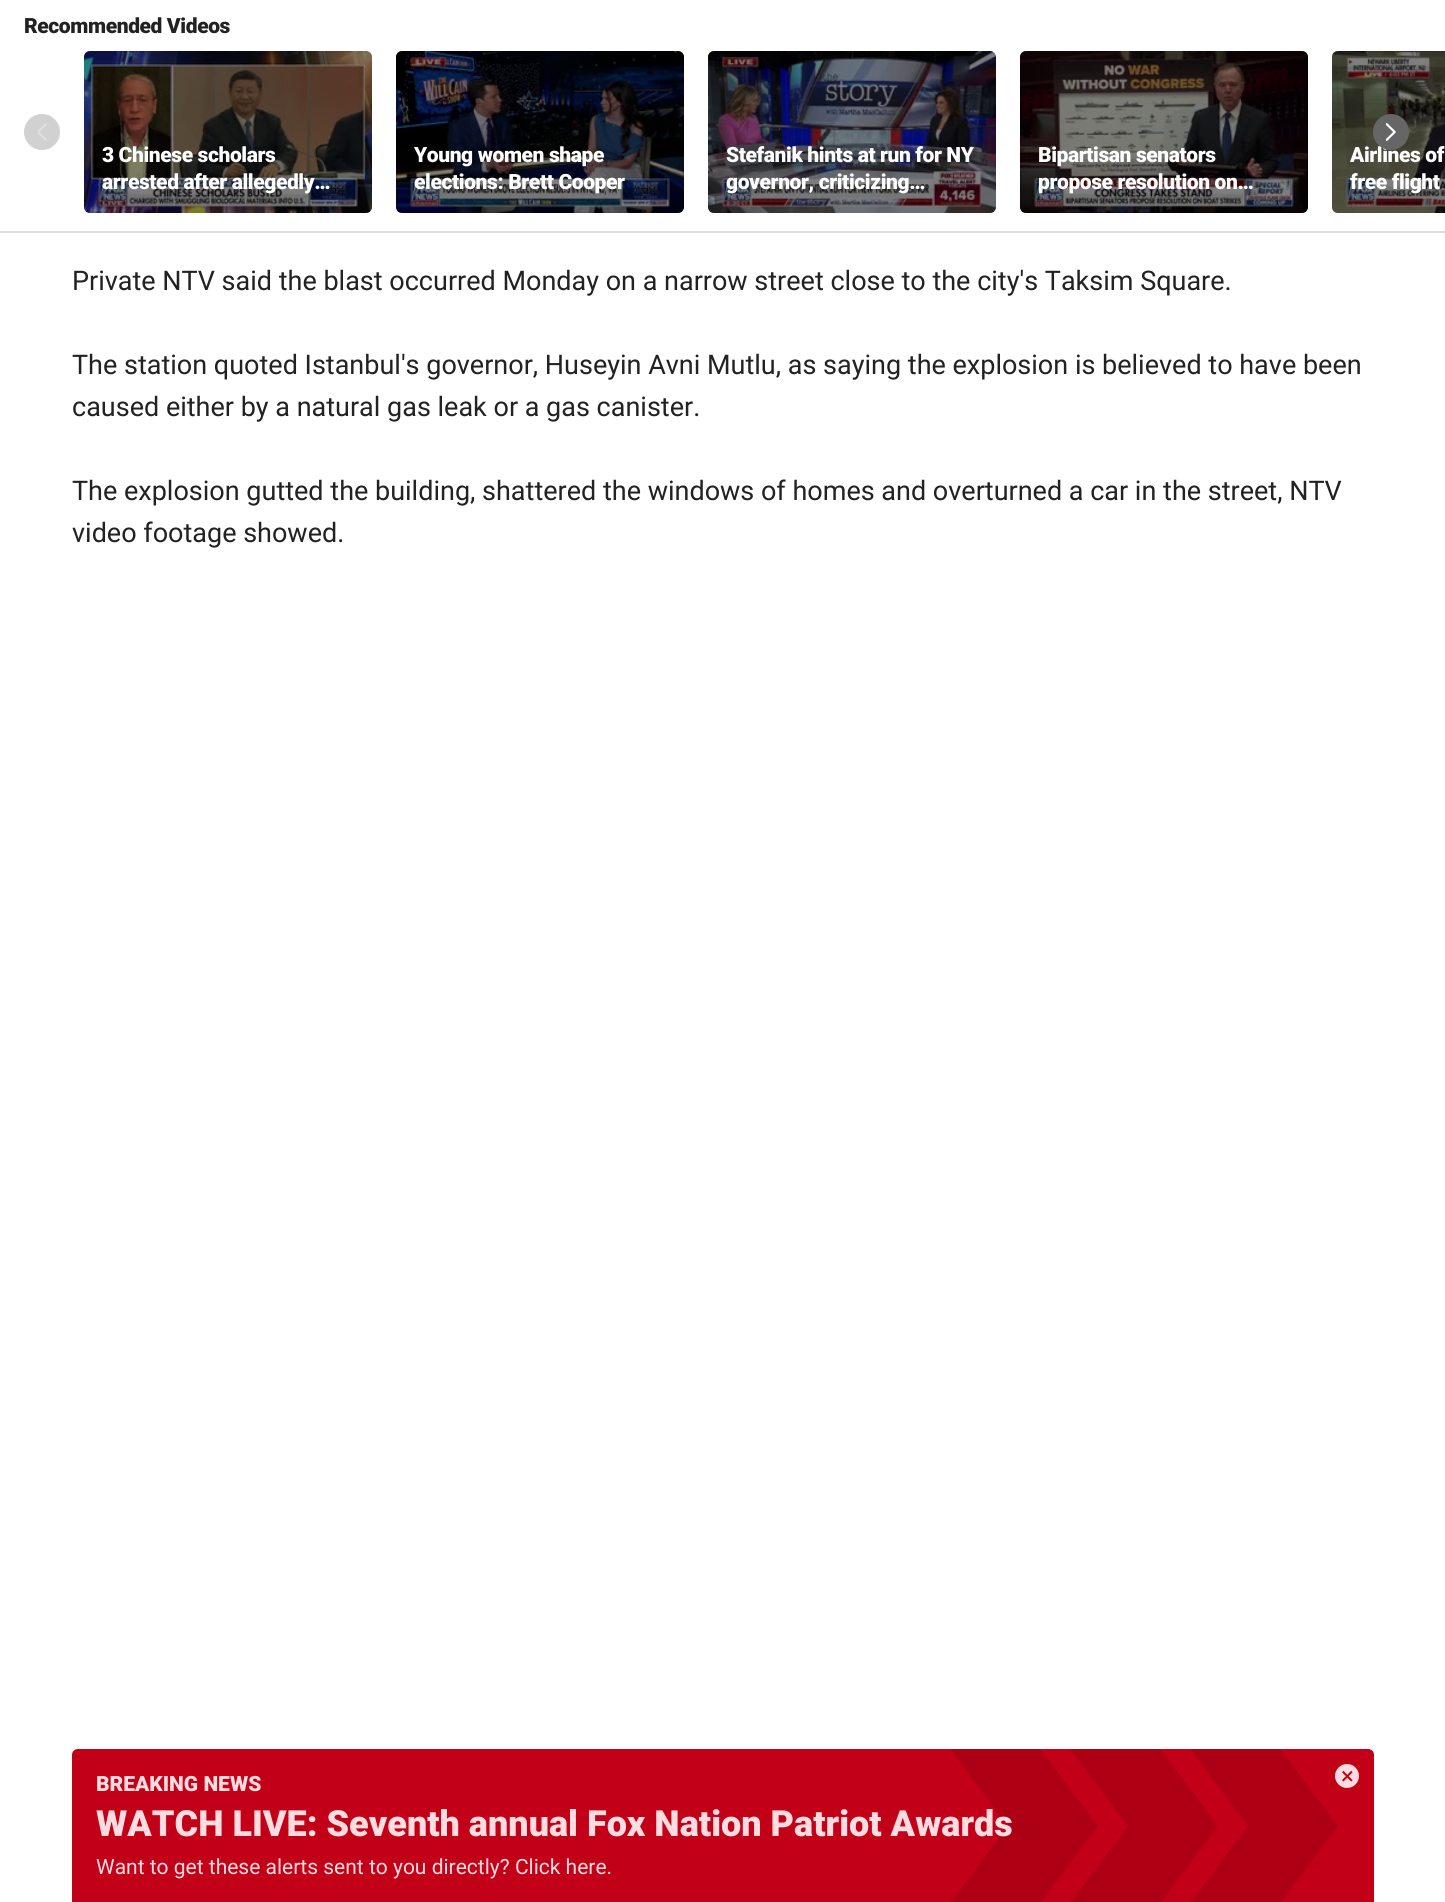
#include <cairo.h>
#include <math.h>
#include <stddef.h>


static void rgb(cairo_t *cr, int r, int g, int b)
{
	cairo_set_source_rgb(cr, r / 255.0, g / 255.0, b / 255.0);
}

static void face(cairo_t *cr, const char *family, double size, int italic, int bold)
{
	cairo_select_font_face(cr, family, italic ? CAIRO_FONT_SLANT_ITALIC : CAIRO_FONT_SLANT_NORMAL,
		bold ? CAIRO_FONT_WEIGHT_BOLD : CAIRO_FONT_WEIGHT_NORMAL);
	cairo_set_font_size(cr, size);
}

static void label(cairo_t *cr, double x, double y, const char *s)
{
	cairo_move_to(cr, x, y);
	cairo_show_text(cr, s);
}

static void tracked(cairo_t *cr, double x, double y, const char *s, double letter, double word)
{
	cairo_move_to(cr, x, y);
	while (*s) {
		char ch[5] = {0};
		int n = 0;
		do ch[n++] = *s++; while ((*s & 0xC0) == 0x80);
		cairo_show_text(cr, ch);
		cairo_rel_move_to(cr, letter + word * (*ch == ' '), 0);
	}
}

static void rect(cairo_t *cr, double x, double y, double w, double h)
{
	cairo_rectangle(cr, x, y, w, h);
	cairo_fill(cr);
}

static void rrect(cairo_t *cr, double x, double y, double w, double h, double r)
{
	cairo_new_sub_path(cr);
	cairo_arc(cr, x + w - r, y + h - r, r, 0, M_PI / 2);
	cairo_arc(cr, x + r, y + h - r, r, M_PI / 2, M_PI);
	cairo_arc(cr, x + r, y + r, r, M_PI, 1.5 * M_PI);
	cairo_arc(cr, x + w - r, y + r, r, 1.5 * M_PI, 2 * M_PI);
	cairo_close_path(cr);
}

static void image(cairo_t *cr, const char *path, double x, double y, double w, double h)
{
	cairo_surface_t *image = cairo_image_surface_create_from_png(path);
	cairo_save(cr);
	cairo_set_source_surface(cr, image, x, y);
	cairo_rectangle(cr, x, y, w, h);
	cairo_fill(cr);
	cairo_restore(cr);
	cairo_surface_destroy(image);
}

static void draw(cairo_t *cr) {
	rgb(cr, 255, 255, 255);
	cairo_paint(cr);
	rgb(cr, 221, 221, 221);
	rect(cr, 0, 231, 1445, 2);
	face(cr, "Roboto Black", 21, 0, 0);
	rgb(cr, 34, 34, 34);
	tracked(cr, 24, 33, "Recommended Videos", -0.4, 0);
	rgb(cr, 209, 209, 209);
	cairo_new_path(cr);
	cairo_arc(cr, 42, 132, 18, 0, 2 * M_PI);
	cairo_fill(cr);
	image(cr, "image0.png", 38, 123, 9, 18);
	image(cr, "image6.png", 1332, 51, 113, 162);
	cairo_set_source_rgba(cr, 0, 0, 0, 0.5);
	cairo_new_path(cr);
	cairo_move_to(cr, 1338, 51);
	cairo_line_to(cr, 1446, 51);
	cairo_line_to(cr, 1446, 213);
	cairo_line_to(cr, 1338, 213);
	cairo_curve_to(cr, 1334.5, 213, 1332, 210.5, 1332, 207);
	cairo_line_to(cr, 1332, 57);
	cairo_curve_to(cr, 1332, 53.5, 1334.5, 51, 1338, 51);
	cairo_close_path(cr);
	cairo_fill(cr);
	rgb(cr, 255, 255, 255);
	tracked(cr, 1350, 162, "Airlines of", -0.4, 0);
	rgb(cr, 102, 102, 102);
	cairo_new_path(cr);
	cairo_arc(cr, 1391, 132, 18, 0, 2 * M_PI);
	cairo_fill(cr);
	image(cr, "image1.png", 1386, 123, 10, 18);
	image(cr, "image2.png", 84, 51, 288, 162);
	cairo_set_source_rgba(cr, 0, 0, 0, 0.5);
	rrect(cr, 84, 51, 288, 162, 6);
	cairo_fill(cr);
	rgb(cr, 255, 255, 255);
	tracked(cr, 102, 162, "3 Chinese scholars", -0.4, 0);
	tracked(cr, 102, 189, "arrested after allegedly…", -0.4, 0);
	image(cr, "image3.png", 396, 51, 288, 162);
	cairo_set_source_rgba(cr, 0, 0, 0, 0.5);
	rrect(cr, 396, 51, 288, 162, 6);
	cairo_fill(cr);
	rgb(cr, 255, 255, 255);
	tracked(cr, 414, 162, "Young women shape", -0.4, 0);
	tracked(cr, 414, 189, "elections: Brett Cooper", -0.4, 0);
	image(cr, "image4.png", 708, 51, 288, 162);
	cairo_set_source_rgba(cr, 0, 0, 0, 0.5);
	rrect(cr, 708, 51, 288, 162, 6);
	cairo_fill(cr);
	rgb(cr, 255, 255, 255);
	tracked(cr, 726, 162, "Stefanik hints at run for NY", -0.4, 0);
	tracked(cr, 726, 189, "governor, criticizing…", -0.4, 0);
	image(cr, "image5.png", 1020, 51, 288, 162);
	cairo_set_source_rgba(cr, 0, 0, 0, 0.5);
	rrect(cr, 1020, 51, 288, 162, 6);
	cairo_fill(cr);
	rgb(cr, 255, 255, 255);
	tracked(cr, 1038, 162, "Bipartisan senators", -0.4, 0);
	tracked(cr, 1038, 189, "propose resolution on…", -0.4, 0);
	tracked(cr, 1350, 189, "free flight", -0.4, 0);
	face(cr, "Roboto", 27, 0, 0);
	rgb(cr, 34, 34, 34);
	label(cr, 72, 290, "Private NTV said the blast occurred Monday on a narrow street close to the city's Taksim Square.");
	label(cr, 72, 374, "The station quoted Istanbul's governor, Huseyin Avni Mutlu, as saying the explosion is believed to have been");
	label(cr, 72, 416, "caused either by a natural gas leak or a gas canister.");
	label(cr, 72, 500, "The explosion gutted the building, shattered the windows of homes and overturned a car in the street, NTV");
	label(cr, 72, 542, "video footage showed.");
	rgb(cr, 194, 0, 23);
	cairo_new_path(cr);
	cairo_move_to(cr, 78, 1749);
	cairo_line_to(cr, 1368, 1749);
	cairo_curve_to(cr, 1371.5, 1749, 1374, 1751.5, 1374, 1755);
	cairo_line_to(cr, 1374, 1902);
	cairo_line_to(cr, 72, 1902);
	cairo_line_to(cr, 72, 1755);
	cairo_curve_to(cr, 72, 1751.5, 74.5, 1749, 78, 1749);
	cairo_close_path(cr);
	cairo_fill(cr);
	face(cr, "Roboto Black", 21, 0, 0);
	rgb(cr, 255, 220, 224);
	label(cr, 96, 1791, "BREAKING NEWS");
	rgb(cr, 174, 0, 21);
	cairo_new_path(cr);
	cairo_move_to(cr, 1280, 1749);
	cairo_line_to(cr, 1338, 1826);
	cairo_line_to(cr, 1281, 1902);
	cairo_line_to(cr, 1158, 1902);
	cairo_line_to(cr, 1158, 1749);
	cairo_close_path(cr);
	cairo_fill(cr);
	rgb(cr, 194, 0, 23);
	cairo_new_path(cr);
	cairo_move_to(cr, 1190, 1749);
	cairo_line_to(cr, 1248, 1826);
	cairo_line_to(cr, 1191, 1902);
	cairo_line_to(cr, 1068, 1902);
	cairo_line_to(cr, 1068, 1749);
	cairo_close_path(cr);
	cairo_fill(cr);
	rgb(cr, 174, 0, 21);
	cairo_new_path(cr);
	cairo_move_to(cr, 1160, 1749);
	cairo_line_to(cr, 1218, 1826);
	cairo_line_to(cr, 1161, 1902);
	cairo_line_to(cr, 1038, 1902);
	cairo_line_to(cr, 1038, 1749);
	cairo_close_path(cr);
	cairo_fill(cr);
	rgb(cr, 194, 0, 23);
	cairo_new_path(cr);
	cairo_move_to(cr, 1070, 1749);
	cairo_line_to(cr, 1128, 1826);
	cairo_line_to(cr, 1071, 1902);
	cairo_line_to(cr, 948, 1902);
	cairo_line_to(cr, 948, 1749);
	cairo_close_path(cr);
	cairo_fill(cr);
	rgb(cr, 174, 0, 21);
	cairo_new_path(cr);
	cairo_move_to(cr, 1040, 1749);
	cairo_line_to(cr, 1098, 1826);
	cairo_line_to(cr, 1041, 1902);
	cairo_line_to(cr, 918, 1902);
	cairo_line_to(cr, 918, 1749);
	cairo_close_path(cr);
	cairo_fill(cr);
	rgb(cr, 194, 0, 23);
	cairo_new_path(cr);
	cairo_move_to(cr, 950, 1749);
	cairo_line_to(cr, 1008, 1826);
	cairo_line_to(cr, 951, 1902);
	cairo_line_to(cr, 828, 1902);
	cairo_line_to(cr, 828, 1749);
	cairo_close_path(cr);
	cairo_fill(cr);
	face(cr, "Roboto Black", 36, 0, 0);
	rgb(cr, 255, 220, 224);
	label(cr, 96, 1836, "WATCH LIVE: Seventh annual Fox Nation Patriot Awards");
	face(cr, "Roboto", 21, 0, 0);
	label(cr, 96, 1874, "Want to get these alerts sent to you directly? Click here.");
	cairo_new_path(cr);
	cairo_arc(cr, 1347, 1776, 12, 0, 2 * M_PI);
	cairo_fill(cr);
	face(cr, "Roboto", 24, 0, 0);
	rgb(cr, 194, 0, 23);
	label(cr, 1341, 1784, "×");
}

int main(void) {
	cairo_surface_t *surface = cairo_image_surface_create(CAIRO_FORMAT_RGB24, 1445, 1902);
	cairo_t *cr = cairo_create(surface);
	cairo_font_options_t *options = cairo_font_options_create();
	cairo_font_options_set_hint_metrics(options, CAIRO_HINT_METRICS_OFF);
	cairo_font_options_set_hint_style(options, CAIRO_HINT_STYLE_NONE);
	cairo_set_font_options(cr, options);
	cairo_set_miter_limit(cr, 4);
	draw(cr);
	cairo_surface_write_to_png(surface, "render.png");
	cairo_font_options_destroy(options);
	cairo_destroy(cr);
	cairo_surface_destroy(surface);
	return 0;
}
